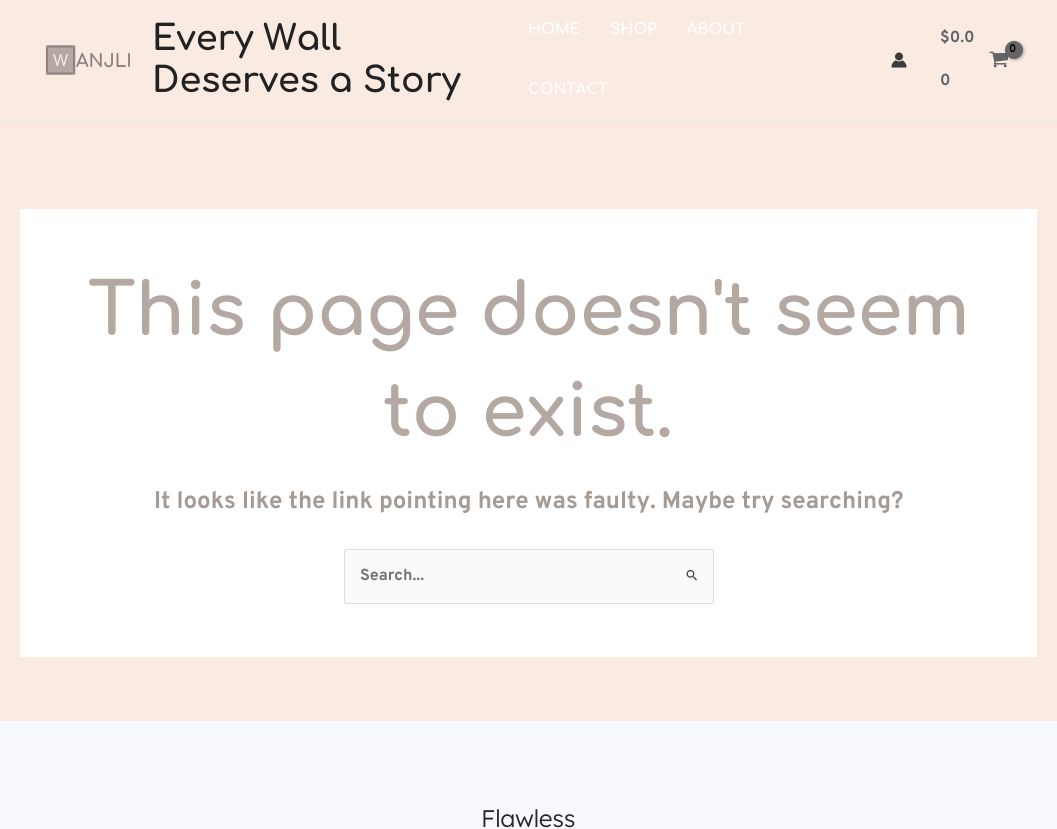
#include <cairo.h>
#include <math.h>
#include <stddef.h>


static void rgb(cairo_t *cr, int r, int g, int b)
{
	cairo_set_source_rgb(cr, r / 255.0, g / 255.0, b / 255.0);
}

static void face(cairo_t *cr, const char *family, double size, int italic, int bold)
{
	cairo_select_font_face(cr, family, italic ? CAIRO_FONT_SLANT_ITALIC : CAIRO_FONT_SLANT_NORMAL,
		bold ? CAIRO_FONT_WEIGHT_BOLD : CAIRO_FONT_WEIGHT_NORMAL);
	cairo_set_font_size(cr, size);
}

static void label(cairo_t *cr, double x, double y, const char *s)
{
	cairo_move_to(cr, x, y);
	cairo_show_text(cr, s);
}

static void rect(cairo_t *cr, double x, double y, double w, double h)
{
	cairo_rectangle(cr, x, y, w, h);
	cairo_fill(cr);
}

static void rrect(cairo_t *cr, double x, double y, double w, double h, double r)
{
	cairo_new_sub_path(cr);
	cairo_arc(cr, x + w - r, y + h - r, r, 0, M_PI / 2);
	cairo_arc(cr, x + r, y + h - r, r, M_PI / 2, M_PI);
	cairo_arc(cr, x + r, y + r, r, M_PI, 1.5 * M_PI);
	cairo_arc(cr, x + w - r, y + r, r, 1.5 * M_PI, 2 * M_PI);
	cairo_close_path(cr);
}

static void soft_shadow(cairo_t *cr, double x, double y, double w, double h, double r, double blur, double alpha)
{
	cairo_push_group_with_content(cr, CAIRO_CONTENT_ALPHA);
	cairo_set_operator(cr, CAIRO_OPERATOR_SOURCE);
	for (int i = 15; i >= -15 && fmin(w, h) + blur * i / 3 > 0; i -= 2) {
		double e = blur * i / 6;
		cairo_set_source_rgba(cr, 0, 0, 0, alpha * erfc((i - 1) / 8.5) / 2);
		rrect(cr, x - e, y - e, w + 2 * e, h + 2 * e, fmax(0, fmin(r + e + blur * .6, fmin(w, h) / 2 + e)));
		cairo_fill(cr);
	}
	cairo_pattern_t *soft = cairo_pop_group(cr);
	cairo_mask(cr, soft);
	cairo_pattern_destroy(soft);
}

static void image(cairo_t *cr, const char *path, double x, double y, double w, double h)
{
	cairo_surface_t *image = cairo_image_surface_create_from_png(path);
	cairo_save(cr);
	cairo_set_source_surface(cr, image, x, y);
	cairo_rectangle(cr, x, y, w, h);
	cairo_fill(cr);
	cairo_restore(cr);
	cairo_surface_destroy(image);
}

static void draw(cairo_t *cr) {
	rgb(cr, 249, 234, 226);
	cairo_paint(cr);
	rgb(cr, 234, 234, 234);
	rect(cr, 0, 120, 1057, 1);
	image(cr, "image0.png", 45, 45, 85, 30);
	face(cr, "Comfortaa", 35, 0, 1);
	rgb(cr, 34, 34, 34);
	label(cr, 152, 50, "Every Wall");
	label(cr, 152, 92, "Deserves a Story");
	face(cr, "Comfortaa", 15, 0, 1);
	rgb(cr, 255, 255, 255);
	label(cr, 528, 34, "HOME");
	label(cr, 610, 34, "SHOP");
	label(cr, 687, 34, "ABOUT");
	label(cr, 528, 94, "CONTACT");
	image(cr, "image1.png", 891, 52, 16, 16);
	face(cr, "Overpass", 16, 0, 1);
	rgb(cr, 100, 100, 103);
	label(cr, 940, 42, "$0.0");
	label(cr, 940, 85, "0");
	image(cr, "image2.png", 989, 51, 19, 17);
	rgb(cr, 0, 0, 0);
	soft_shadow(cr, 1006, 42, 18, 18, 9, 1.5, 0.3);
	rgb(cr, 100, 100, 103);
	cairo_arc(cr, 1014, 50, 9, 0, 2 * M_PI);
	cairo_fill(cr);
	face(cr, "Overpass", 11, 0, 1);
	rgb(cr, 0, 0, 0);
	label(cr, 1009, 52, "0");
	rgb(cr, 255, 255, 255);
	rect(cr, 20, 209, 1017, 448);
	face(cr, "Comfortaa", 72, 0, 1);
	rgb(cr, 179, 169, 162);
	label(cr, 88, 335, "This page doesn't seem");
	label(cr, 383, 436, "to exist.");
	face(cr, "Overpass", 24, 0, 1);
	rgb(cr, 165, 155, 149);
	label(cr, 154, 508, "It looks like the link pointing here was faulty. Maybe try searching?");
	rgb(cr, 250, 250, 250);
	rrect(cr, 344.5, 549.5, 369, 54, 1.5);
	cairo_fill_preserve(cr);
	rgb(cr, 221, 221, 221);
	cairo_set_line_width(cr, 1);
	cairo_stroke(cr);
	face(cr, "Overpass", 16, 0, 1);
	rgb(cr, 117, 117, 117);
	label(cr, 360, 580, "Search...");
	image(cr, "image3.png", 686, 570, 11, 11);
	rgb(cr, 248, 248, 255);
	rect(cr, 0, 721, 1057, 108);
	image(cr, "image4.png", 483, 809, 92, 19);
}

int main(void) {
	cairo_surface_t *surface = cairo_image_surface_create(CAIRO_FORMAT_RGB24, 1057, 829);
	cairo_t *cr = cairo_create(surface);
	cairo_font_options_t *options = cairo_font_options_create();
	cairo_font_options_set_hint_metrics(options, CAIRO_HINT_METRICS_OFF);
	cairo_font_options_set_hint_style(options, CAIRO_HINT_STYLE_NONE);
	cairo_set_font_options(cr, options);
	cairo_set_miter_limit(cr, 4);
	draw(cr);
	cairo_surface_write_to_png(surface, "render.png");
	cairo_font_options_destroy(options);
	cairo_destroy(cr);
	cairo_surface_destroy(surface);
	return 0;
}
